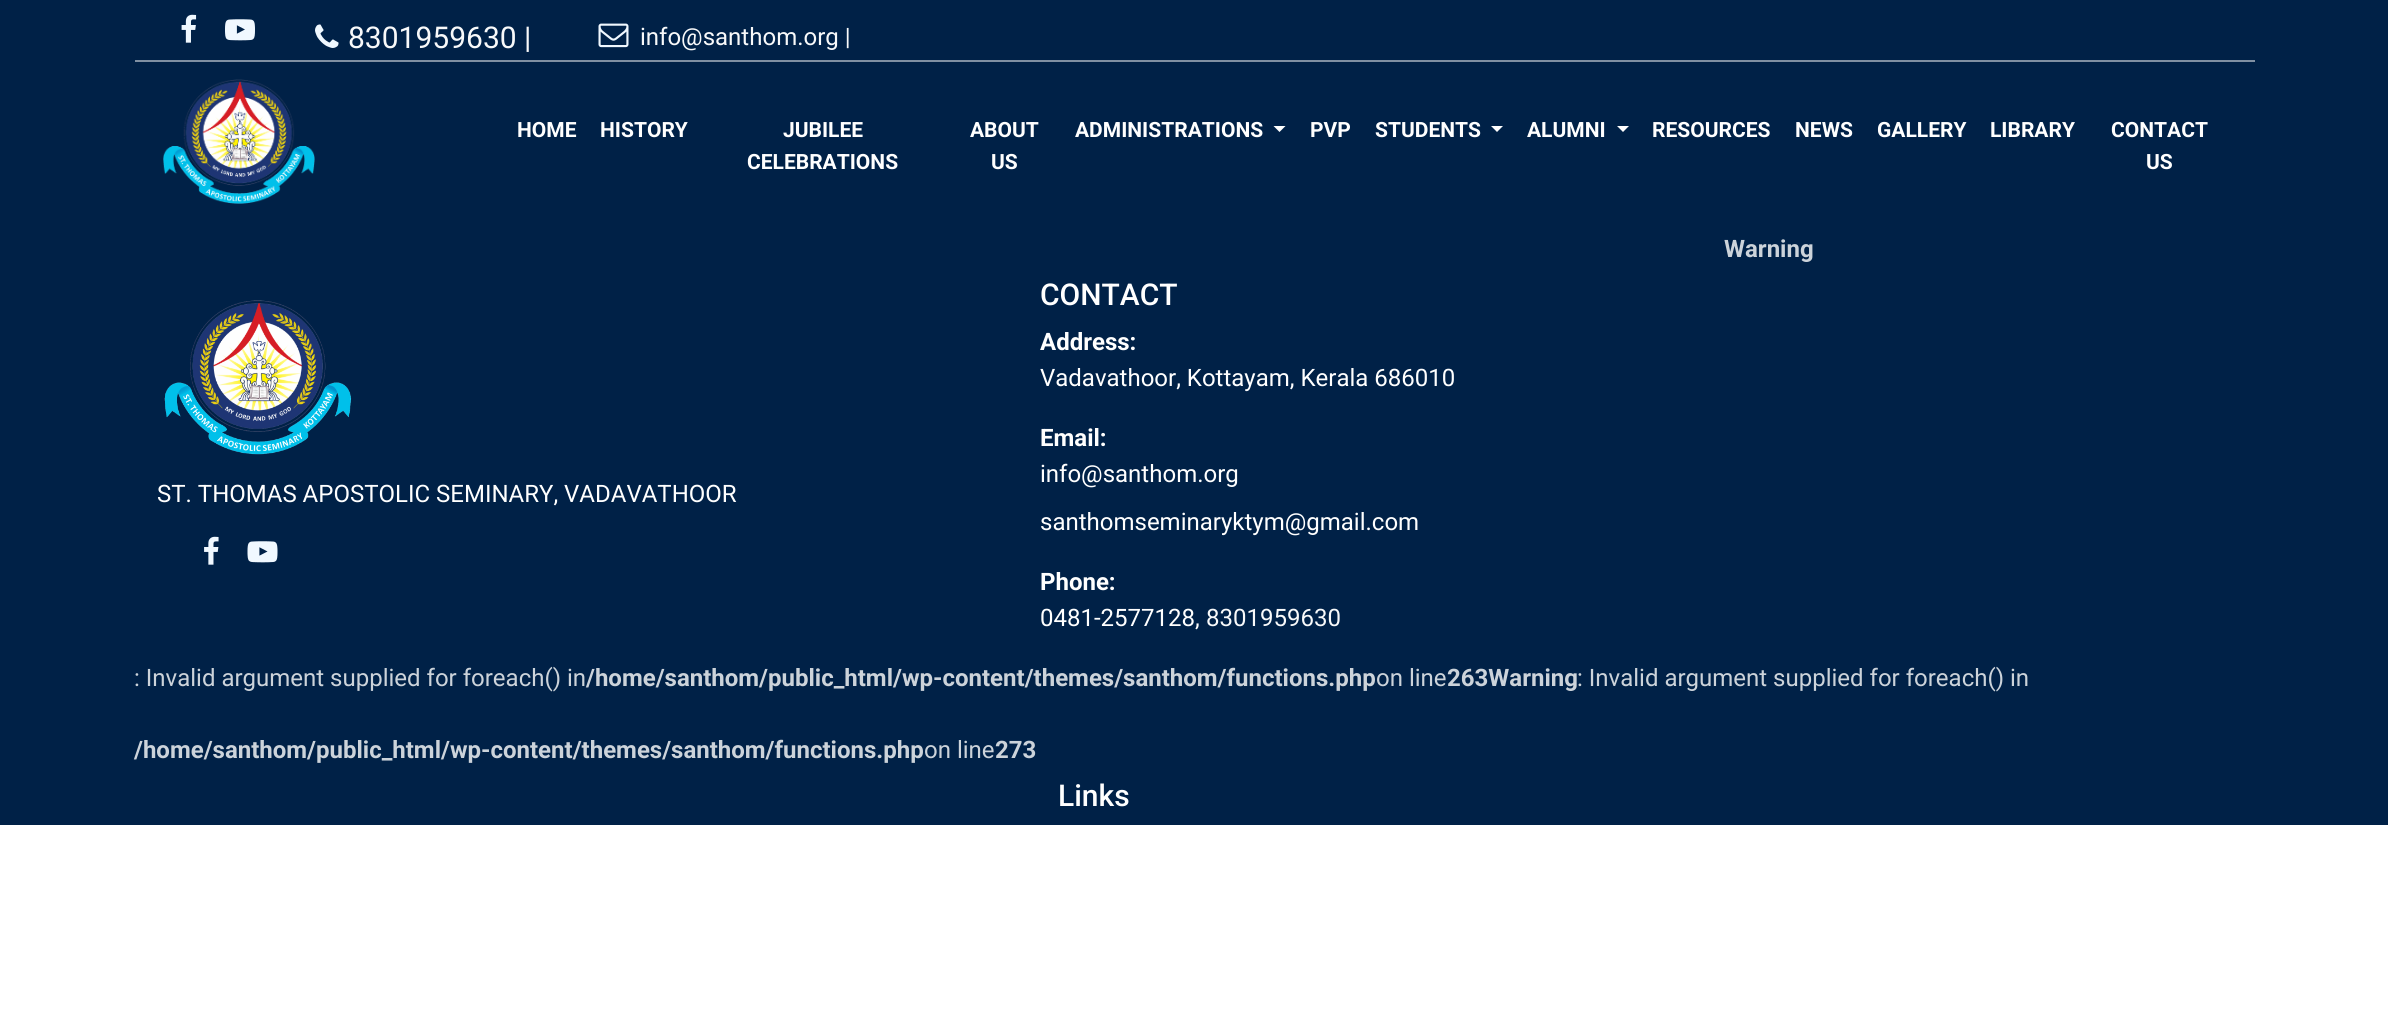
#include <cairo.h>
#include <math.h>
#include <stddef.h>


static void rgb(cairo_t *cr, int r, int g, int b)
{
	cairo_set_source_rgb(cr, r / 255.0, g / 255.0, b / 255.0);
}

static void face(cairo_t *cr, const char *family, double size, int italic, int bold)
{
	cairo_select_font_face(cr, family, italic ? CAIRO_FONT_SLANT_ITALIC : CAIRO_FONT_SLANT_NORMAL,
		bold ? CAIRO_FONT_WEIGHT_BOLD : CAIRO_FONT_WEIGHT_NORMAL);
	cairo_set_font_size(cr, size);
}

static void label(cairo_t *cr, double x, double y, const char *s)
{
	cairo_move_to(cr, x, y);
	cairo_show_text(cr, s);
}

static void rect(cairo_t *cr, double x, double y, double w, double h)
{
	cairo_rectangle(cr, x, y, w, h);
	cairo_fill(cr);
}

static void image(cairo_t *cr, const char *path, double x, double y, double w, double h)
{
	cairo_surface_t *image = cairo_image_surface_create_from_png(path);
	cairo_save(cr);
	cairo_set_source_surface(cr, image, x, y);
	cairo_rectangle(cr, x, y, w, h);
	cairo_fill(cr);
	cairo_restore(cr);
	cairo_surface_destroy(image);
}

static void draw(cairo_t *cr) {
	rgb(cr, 255, 255, 255);
	cairo_paint(cr);
	rgb(cr, 0, 33, 71);
	rect(cr, 0, 0, 2388, 62);
	rgb(cr, 128, 144, 163);
	rect(cr, 135, 60, 2120, 2);
	image(cr, "image0.png", 181, 14, 16, 29);
	image(cr, "image1.png", 225, 19, 30, 22);
	image(cr, "image2.png", 315, 24, 24, 24);
	face(cr, "Roboto", 30, 0, 0);
	rgb(cr, 248, 249, 250);
	label(cr, 348, 48, "8301959630 |");
	image(cr, "image3.png", 598, 23, 31, 25);
	face(cr, "Roboto", 24, 0, 0);
	label(cr, 640, 45, "info@santhom.org |");
	rgb(cr, 0, 33, 71);
	rect(cr, 0, 62, 2388, 763);
	image(cr, "image4.png", 163, 79, 152, 125);
	face(cr, "Roboto", 21, 0, 1);
	rgb(cr, 255, 255, 255);
	label(cr, 517, 137, "HOME");
	label(cr, 600, 137, "HISTORY");
	label(cr, 783, 137, "JUBILEE");
	label(cr, 747, 169, "CELEBRATIONS");
	label(cr, 970, 137, "ABOUT");
	label(cr, 991, 169, "US");
	label(cr, 1075, 137, "ADMINISTRATIONS");
	cairo_new_path(cr);
	cairo_move_to(cr, 1273.5, 126);
	cairo_line_to(cr, 1285.5, 126);
	cairo_line_to(cr, 1279.5, 132);
	cairo_close_path(cr);
	cairo_fill(cr);
	label(cr, 1310, 137, "PVP");
	label(cr, 1375, 137, "STUDENTS");
	cairo_new_path(cr);
	cairo_move_to(cr, 1491, 126);
	cairo_line_to(cr, 1503, 126);
	cairo_line_to(cr, 1497, 132);
	cairo_close_path(cr);
	cairo_fill(cr);
	label(cr, 1527, 137, "ALUMNI");
	cairo_new_path(cr);
	cairo_move_to(cr, 1617, 126);
	cairo_line_to(cr, 1629, 126);
	cairo_line_to(cr, 1623, 132);
	cairo_close_path(cr);
	cairo_fill(cr);
	label(cr, 1652, 137, "RESOURCES");
	label(cr, 1795, 137, "NEWS");
	label(cr, 1877, 137, "GALLERY");
	label(cr, 1990, 137, "LIBRARY");
	label(cr, 2111, 137, "CONTACT");
	label(cr, 2146, 169, "US");
	face(cr, "Roboto", 24, 0, 1);
	rgb(cr, 204, 211, 218);
	label(cr, 1724, 257, "Warning");
	image(cr, "image5.png", 164, 300, 188, 155);
	face(cr, "Roboto", 24, 0, 0);
	rgb(cr, 255, 255, 255);
	label(cr, 157, 502, "ST. THOMAS APOSTOLIC SEMINARY, VADAVATHOOR");
	image(cr, "image6.png", 204, 536, 15, 29);
	image(cr, "image7.png", 247, 541, 31, 22);
	face(cr, "Roboto Medium", 30, 0, 0);
	label(cr, 1040, 305, "CONTACT");
	face(cr, "Roboto", 24, 0, 1);
	label(cr, 1040, 350, "Address:");
	face(cr, "Roboto", 24, 0, 0);
	label(cr, 1040, 386, "Vadavathoor, Kottayam, Kerala 686010");
	face(cr, "Roboto", 24, 0, 1);
	label(cr, 1040, 446, "Email:");
	face(cr, "Roboto", 24, 0, 0);
	label(cr, 1040, 482, "info@santhom.org");
	label(cr, 1040, 530, "santhomseminaryktym@gmail.com");
	face(cr, "Roboto", 24, 0, 1);
	label(cr, 1040, 590, "Phone:");
	face(cr, "Roboto", 24, 0, 0);
	label(cr, 1040, 626, "0481-2577128,");
	rgb(cr, 248, 249, 250);
	label(cr, 1206, 626, "8301959630");
	rgb(cr, 204, 211, 218);
	label(cr, 134, 686, ": Invalid argument supplied for foreach() in");
	face(cr, "Roboto", 24, 0, 1);
	label(cr, 586, 686, "/home/santhom/public_html/wp-content/themes/santhom/functions.php");
	face(cr, "Roboto", 24, 0, 0);
	label(cr, 1376, 686, "on line");
	face(cr, "Roboto", 24, 0, 1);
	label(cr, 1447, 686, "263Warning");
	face(cr, "Roboto", 24, 0, 0);
	label(cr, 1577, 686, ": Invalid argument supplied for foreach() in");
	face(cr, "Roboto", 24, 0, 1);
	label(cr, 134, 758, "/home/santhom/public_html/wp-content/themes/santhom/functions.php");
	face(cr, "Roboto", 24, 0, 0);
	label(cr, 924, 758, "on line");
	face(cr, "Roboto", 24, 0, 1);
	label(cr, 995, 758, "273");
	face(cr, "Roboto Medium", 30, 0, 0);
	rgb(cr, 255, 255, 255);
	label(cr, 1058, 806, "Links");
}

int main(void) {
	cairo_surface_t *surface = cairo_image_surface_create(CAIRO_FORMAT_RGB24, 2388, 1014);
	cairo_t *cr = cairo_create(surface);
	cairo_font_options_t *options = cairo_font_options_create();
	cairo_font_options_set_hint_metrics(options, CAIRO_HINT_METRICS_OFF);
	cairo_font_options_set_hint_style(options, CAIRO_HINT_STYLE_NONE);
	cairo_set_font_options(cr, options);
	cairo_set_miter_limit(cr, 4);
	draw(cr);
	cairo_surface_write_to_png(surface, "render.png");
	cairo_font_options_destroy(options);
	cairo_destroy(cr);
	cairo_surface_destroy(surface);
	return 0;
}
